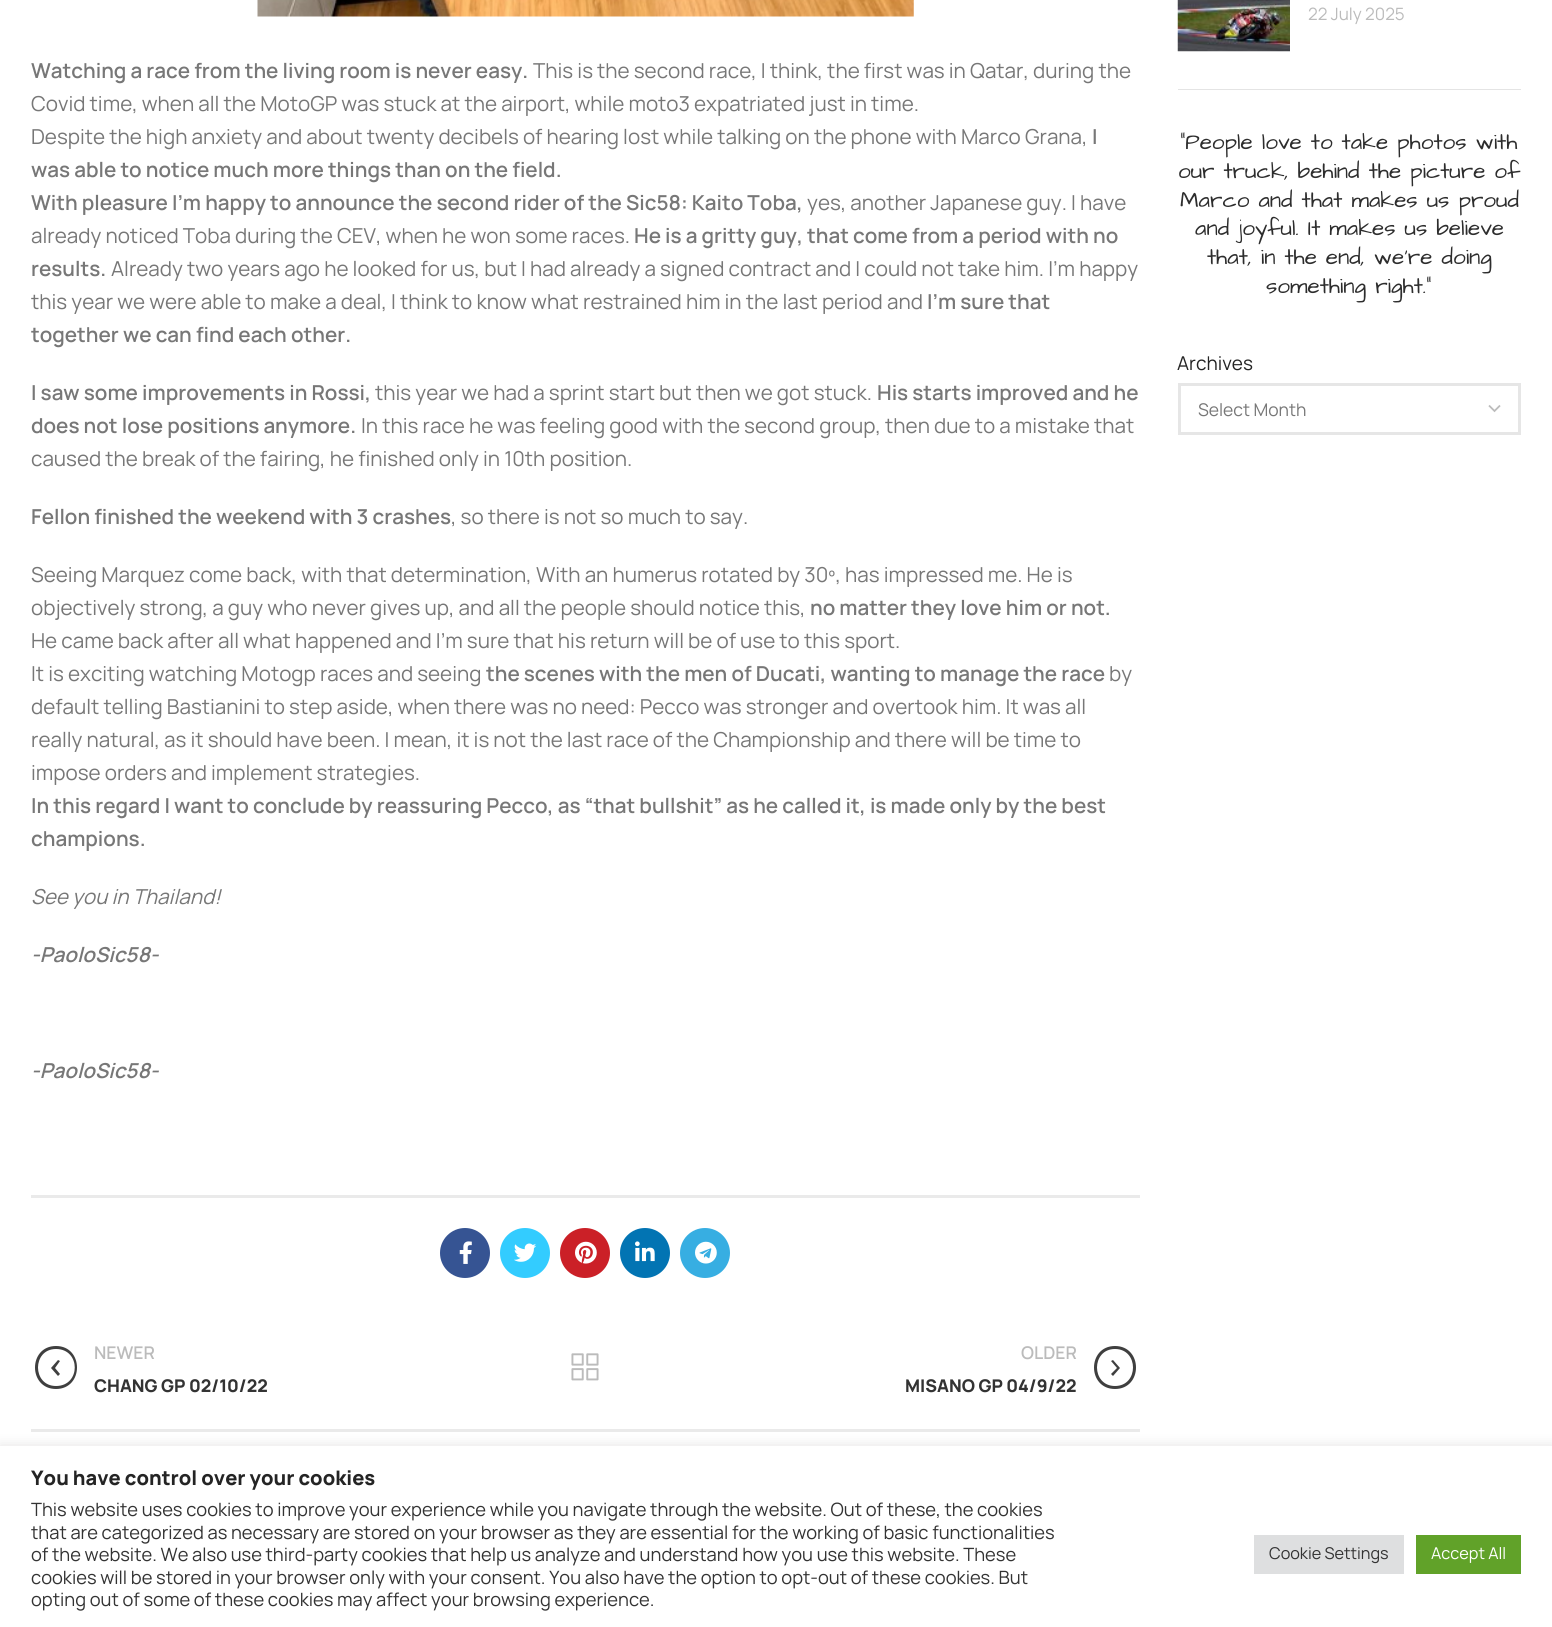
#include <cairo.h>
#include <math.h>
#include <stddef.h>


static void rgb(cairo_t *cr, int r, int g, int b)
{
	cairo_set_source_rgb(cr, r / 255.0, g / 255.0, b / 255.0);
}

static void face(cairo_t *cr, const char *family, double size, int italic, int bold)
{
	cairo_select_font_face(cr, family, italic ? CAIRO_FONT_SLANT_ITALIC : CAIRO_FONT_SLANT_NORMAL,
		bold ? CAIRO_FONT_WEIGHT_BOLD : CAIRO_FONT_WEIGHT_NORMAL);
	cairo_set_font_size(cr, size);
}

static void label(cairo_t *cr, double x, double y, const char *s)
{
	cairo_move_to(cr, x, y);
	cairo_show_text(cr, s);
}

static void rect(cairo_t *cr, double x, double y, double w, double h)
{
	cairo_rectangle(cr, x, y, w, h);
	cairo_fill(cr);
}

static void rrect(cairo_t *cr, double x, double y, double w, double h, double r)
{
	cairo_new_sub_path(cr);
	cairo_arc(cr, x + w - r, y + h - r, r, 0, M_PI / 2);
	cairo_arc(cr, x + r, y + h - r, r, M_PI / 2, M_PI);
	cairo_arc(cr, x + r, y + r, r, M_PI, 1.5 * M_PI);
	cairo_arc(cr, x + w - r, y + r, r, 1.5 * M_PI, 2 * M_PI);
	cairo_close_path(cr);
}

static void soft_shadow(cairo_t *cr, double x, double y, double w, double h, double r, double blur, double alpha)
{
	cairo_push_group_with_content(cr, CAIRO_CONTENT_ALPHA);
	cairo_set_operator(cr, CAIRO_OPERATOR_SOURCE);
	for (int i = 15; i >= -15 && fmin(w, h) + blur * i / 3 > 0; i -= 2) {
		double e = blur * i / 6;
		cairo_set_source_rgba(cr, 0, 0, 0, alpha * erfc((i - 1) / 8.5) / 2);
		rrect(cr, x - e, y - e, w + 2 * e, h + 2 * e, fmax(0, fmin(r + e + blur * .6, fmin(w, h) / 2 + e)));
		cairo_fill(cr);
	}
	cairo_pattern_t *soft = cairo_pop_group(cr);
	cairo_mask(cr, soft);
	cairo_pattern_destroy(soft);
}

static void image(cairo_t *cr, const char *path, double x, double y, double w, double h)
{
	cairo_surface_t *image = cairo_image_surface_create_from_png(path);
	cairo_save(cr);
	cairo_set_source_surface(cr, image, x, y);
	cairo_rectangle(cr, x, y, w, h);
	cairo_fill(cr);
	cairo_restore(cr);
	cairo_surface_destroy(image);
}

static void draw(cairo_t *cr) {
	rgb(cr, 255, 255, 255);
	cairo_paint(cr);
	image(cr, "image0.png", 257, 0, 657, 17);
	face(cr, "Manrope SemiBold", 20.62, 0, 0);
	rgb(cr, 119, 119, 119);
	label(cr, 31, 78, "Watching a race from the living room is never easy.");
	face(cr, "Manrope", 20.62, 0, 0);
	label(cr, 533, 78, "This is the second race, I think, the first was in Qatar, during the");
	label(cr, 31, 111, "Covid time, when all the MotoGP was stuck at the airport, while moto3 expatriated just in time.");
	label(cr, 31, 144, "Despite the high anxiety and about twenty decibels of hearing lost while talking on the phone with Marco Grana,");
	face(cr, "Manrope SemiBold", 20.62, 0, 0);
	label(cr, 1092, 144, "I");
	label(cr, 31, 177, "was able to notice much more things than on the field.");
	label(cr, 31, 210, "With pleasure I’m happy to announce the second rider of the Sic58: Kaito Toba,");
	face(cr, "Manrope", 20.62, 0, 0);
	label(cr, 807, 210, "yes, another Japanese guy. I have");
	label(cr, 31, 243, "already noticed Toba during the CEV, when he won some races.");
	face(cr, "Manrope SemiBold", 20.62, 0, 0);
	label(cr, 634, 243, "He is a gritty guy, that come from a period with no");
	label(cr, 31, 276, "results.");
	face(cr, "Manrope", 20.62, 0, 0);
	label(cr, 111, 276, "Already two years ago he looked for us, but I had already a signed contract and I could not take him. I’m happy");
	label(cr, 31, 309, "this year we were able to make a deal, I think to know what restrained him in the last period and");
	face(cr, "Manrope SemiBold", 20.62, 0, 0);
	label(cr, 927, 309, "I’m sure that");
	label(cr, 31, 342, "together we can find each other.");
	label(cr, 31, 400, "I saw some improvements in Rossi,");
	face(cr, "Manrope", 20.62, 0, 0);
	label(cr, 375, 400, "this year we had a sprint start but then we got stuck.");
	face(cr, "Manrope SemiBold", 20.62, 0, 0);
	label(cr, 877, 400, "His starts improved and he");
	label(cr, 31, 433, "does not lose positions anymore.");
	face(cr, "Manrope", 20.62, 0, 0);
	label(cr, 361, 433, "In this race he was feeling good with the second group, then due to a mistake that");
	label(cr, 31, 466, "caused the break of the fairing, he finished only in 10th position.");
	face(cr, "Manrope SemiBold", 20.62, 0, 0);
	label(cr, 31, 524, "Fellon finished the weekend with 3 crashes");
	face(cr, "Manrope", 20.62, 0, 0);
	label(cr, 451, 524, ", so there is not so much to say.");
	label(cr, 31, 582, "Seeing Marquez come back, with that determination, With an humerus rotated by 30º, has impressed me. He is");
	label(cr, 31, 615, "objectively strong, a guy who never gives up, and all the people should notice this,");
	face(cr, "Manrope SemiBold", 20.62, 0, 0);
	label(cr, 810, 615, "no matter they love him or not.");
	face(cr, "Manrope", 20.62, 0, 0);
	label(cr, 31, 648, "He came back after all what happened and I’m sure that his return will be of use to this sport.");
	label(cr, 31, 681, "It is exciting watching Motogp races and seeing");
	face(cr, "Manrope SemiBold", 20.62, 0, 0);
	label(cr, 486, 681, "the scenes with the men of Ducati, wanting to manage the race");
	face(cr, "Manrope", 20.62, 0, 0);
	label(cr, 1109, 681, "by");
	label(cr, 31, 714, "default telling Bastianini to step aside, when there was no need: Pecco was stronger and overtook him. It was all");
	label(cr, 31, 747, "really natural, as it should have been. I mean, it is not the last race of the Championship and there will be time to");
	label(cr, 31, 780, "impose orders and implement strategies.");
	face(cr, "Manrope SemiBold", 20.62, 0, 0);
	label(cr, 31, 813, "In this regard I want to conclude by reassuring Pecco, as “that bullshit” as he called it, is made only by the best");
	label(cr, 31, 846, "champions.");
	face(cr, "Manrope", 20.62, 1, 0);
	label(cr, 31, 904, "See you in Thailand!");
	face(cr, "Manrope SemiBold", 20.62, 1, 0);
	label(cr, 31, 962, "-PaoloSic58-");
	label(cr, 31, 1078, "-PaoloSic58-");
	rgb(cr, 234, 234, 234);
	rect(cr, 31, 1195, 1109, 3);
	rgb(cr, 54, 84, 147);
	cairo_new_path(cr);
	cairo_arc(cr, 465, 1253, 25, 0, 2 * M_PI);
	cairo_fill(cr);
	image(cr, "image1.png", 459, 1241, 13, 23);
	rgb(cr, 51, 204, 255);
	cairo_arc(cr, 525, 1253, 25, 0, 2 * M_PI);
	cairo_fill(cr);
	image(cr, "image2.png", 514, 1243, 23, 19);
	rgb(cr, 203, 32, 39);
	cairo_arc(cr, 585, 1253, 25, 0, 2 * M_PI);
	cairo_fill(cr);
	image(cr, "image3.png", 575, 1241, 22, 23);
	rgb(cr, 2, 116, 179);
	cairo_arc(cr, 645, 1253, 25, 0, 2 * M_PI);
	cairo_fill(cr);
	image(cr, "image4.png", 635, 1241, 20, 21);
	rgb(cr, 55, 174, 226);
	cairo_arc(cr, 705, 1253, 25, 0, 2 * M_PI);
	cairo_fill(cr);
	image(cr, "image5.png", 695, 1241, 22, 23);
	rgb(cr, 234, 234, 234);
	rect(cr, 31, 1429, 1109, 3);
	rgb(cr, 63, 63, 63);
	cairo_new_path(cr);
	cairo_move_to(cr, 56, 1389);
	cairo_curve_to(cr, 28, 1389, 28, 1346, 56, 1346);
	cairo_curve_to(cr, 84, 1346, 84, 1389, 56, 1389);
	cairo_close_path(cr);
	cairo_move_to(cr, 56, 1349);
	cairo_curve_to(cr, 32, 1349, 32, 1386, 56, 1386);
	cairo_curve_to(cr, 81, 1386, 81, 1349, 56, 1349);
	cairo_close_path(cr);
	cairo_move_to(cr, 58, 1376);
	cairo_line_to(cr, 51, 1368);
	cairo_line_to(cr, 58, 1360);
	cairo_line_to(cr, 60, 1361);
	cairo_line_to(cr, 55, 1368);
	cairo_line_to(cr, 60, 1374);
	cairo_close_path(cr);
	cairo_fill(cr);
	face(cr, "Manrope SemiBold", 17.5, 0, 0);
	rgb(cr, 187, 187, 187);
	label(cr, 94, 1359, "NEWER");
	face(cr, "Manrope ExtraBold", 17.5, 0, 0);
	rgb(cr, 51, 51, 51);
	label(cr, 94, 1392, "CHANG GP 02/10/22");
	image(cr, "image6.png", 571, 1353, 28, 28);
	face(cr, "Manrope SemiBold", 17.5, 0, 0);
	rgb(cr, 187, 187, 187);
	label(cr, 1021, 1359, "OLDER");
	rgb(cr, 63, 63, 63);
	cairo_new_path(cr);
	cairo_move_to(cr, 1115, 1389);
	cairo_curve_to(cr, 1087, 1389, 1087, 1346, 1115, 1346);
	cairo_curve_to(cr, 1143, 1346, 1143, 1389, 1115, 1389);
	cairo_close_path(cr);
	cairo_move_to(cr, 1115, 1349);
	cairo_curve_to(cr, 1091, 1349, 1091, 1386, 1115, 1386);
	cairo_curve_to(cr, 1139, 1386, 1139, 1349, 1115, 1349);
	cairo_close_path(cr);
	cairo_move_to(cr, 1113, 1376);
	cairo_line_to(cr, 1111, 1374);
	cairo_line_to(cr, 1117, 1368);
	cairo_line_to(cr, 1111, 1361);
	cairo_line_to(cr, 1113, 1360);
	cairo_line_to(cr, 1120, 1368);
	cairo_close_path(cr);
	cairo_fill(cr);
	face(cr, "Manrope ExtraBold", 17.5, 0, 0);
	rgb(cr, 51, 51, 51);
	label(cr, 905, 1392, "MISANO GP 04/9/22");
	rgb(cr, 228, 228, 228);
	rect(cr, 1178, 89, 343, 1);
	image(cr, "image7.png", 1177, 0, 113, 52);
	face(cr, "Manrope", 17, 0, 0);
	rgb(cr, 187, 187, 187);
	label(cr, 1308, 20, "22 July 2025");
	face(cr, "Architects Daughter", 22.5, 0, 0);
	rgb(cr, 45, 45, 45);
	label(cr, 1180, 149, "\"People love to take photos with");
	label(cr, 1178, 178, "our truck, behind the picture of");
	label(cr, 1180, 207, "Marco and that makes us proud");
	label(cr, 1195, 235, "and joyful. It makes us believe");
	label(cr, 1207, 264, "that, in the end, we’re doing");
	label(cr, 1266, 293, "something right.\"");
	face(cr, "Manrope", 19, 0, 0);
	rgb(cr, 36, 36, 36);
	label(cr, 1177, 370, "Archives");
	cairo_new_path(cr);
	cairo_move_to(cr, 1489, 405.5);
	cairo_line_to(cr, 1494.5, 411);
	cairo_line_to(cr, 1500, 405.5);
	rgb(cr, 187, 187, 187);
	cairo_set_line_width(cr, 1.8);
	cairo_stroke(cr);
	cairo_rectangle(cr, 1179.5, 384.5, 340, 49);
	rgb(cr, 230, 230, 230);
	cairo_set_line_width(cr, 3);
	cairo_stroke(cr);
	face(cr, "Manrope", 17.5, 0, 0);
	rgb(cr, 119, 119, 119);
	label(cr, 1198, 416, "Select Month");
	rgb(cr, 172, 171, 171);
	soft_shadow(cr, 0, 1445, 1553, 181, 0, 6, 0.3);
	rgb(cr, 255, 255, 255);
	rect(cr, 0, 1446, 1552, 181);
	face(cr, "Manrope ExtraBold", 20, 0, 0);
	rgb(cr, 36, 36, 36);
	label(cr, 31, 1485, "You have control over your cookies");
	face(cr, "Manrope", 18.33, 0, 0);
	rgb(cr, 51, 51, 51);
	label(cr, 31, 1516, "This website uses cookies to improve your experience while you navigate through the website. Out of these, the cookies");
	label(cr, 31, 1539, "that are categorized as necessary are stored on your browser as they are essential for the working of basic functionalities");
	label(cr, 31, 1561, "of the website. We also use third-party cookies that help us analyze and understand how you use this website. These");
	label(cr, 31, 1584, "cookies will be stored in your browser only with your consent. You also have the option to opt-out of these cookies. But");
	label(cr, 31, 1606, "opting out of some of these cookies may affect your browsing experience.");
	rgb(cr, 222, 223, 224);
	rect(cr, 1254, 1535, 150, 39);
	face(cr, "Manrope", 16.25, 0, 0);
	rgb(cr, 51, 51, 51);
	label(cr, 1269, 1559, "Cookie Settings");
	rgb(cr, 97, 162, 41);
	rect(cr, 1416, 1535, 105, 39);
	rgb(cr, 255, 255, 255);
	label(cr, 1431, 1559, "Accept All");
}

int main(void) {
	cairo_surface_t *surface = cairo_image_surface_create(CAIRO_FORMAT_RGB24, 1552, 1627);
	cairo_t *cr = cairo_create(surface);
	cairo_font_options_t *options = cairo_font_options_create();
	cairo_font_options_set_hint_metrics(options, CAIRO_HINT_METRICS_OFF);
	cairo_font_options_set_hint_style(options, CAIRO_HINT_STYLE_NONE);
	cairo_set_font_options(cr, options);
	cairo_set_miter_limit(cr, 4);
	draw(cr);
	cairo_surface_write_to_png(surface, "render.png");
	cairo_font_options_destroy(options);
	cairo_destroy(cr);
	cairo_surface_destroy(surface);
	return 0;
}
